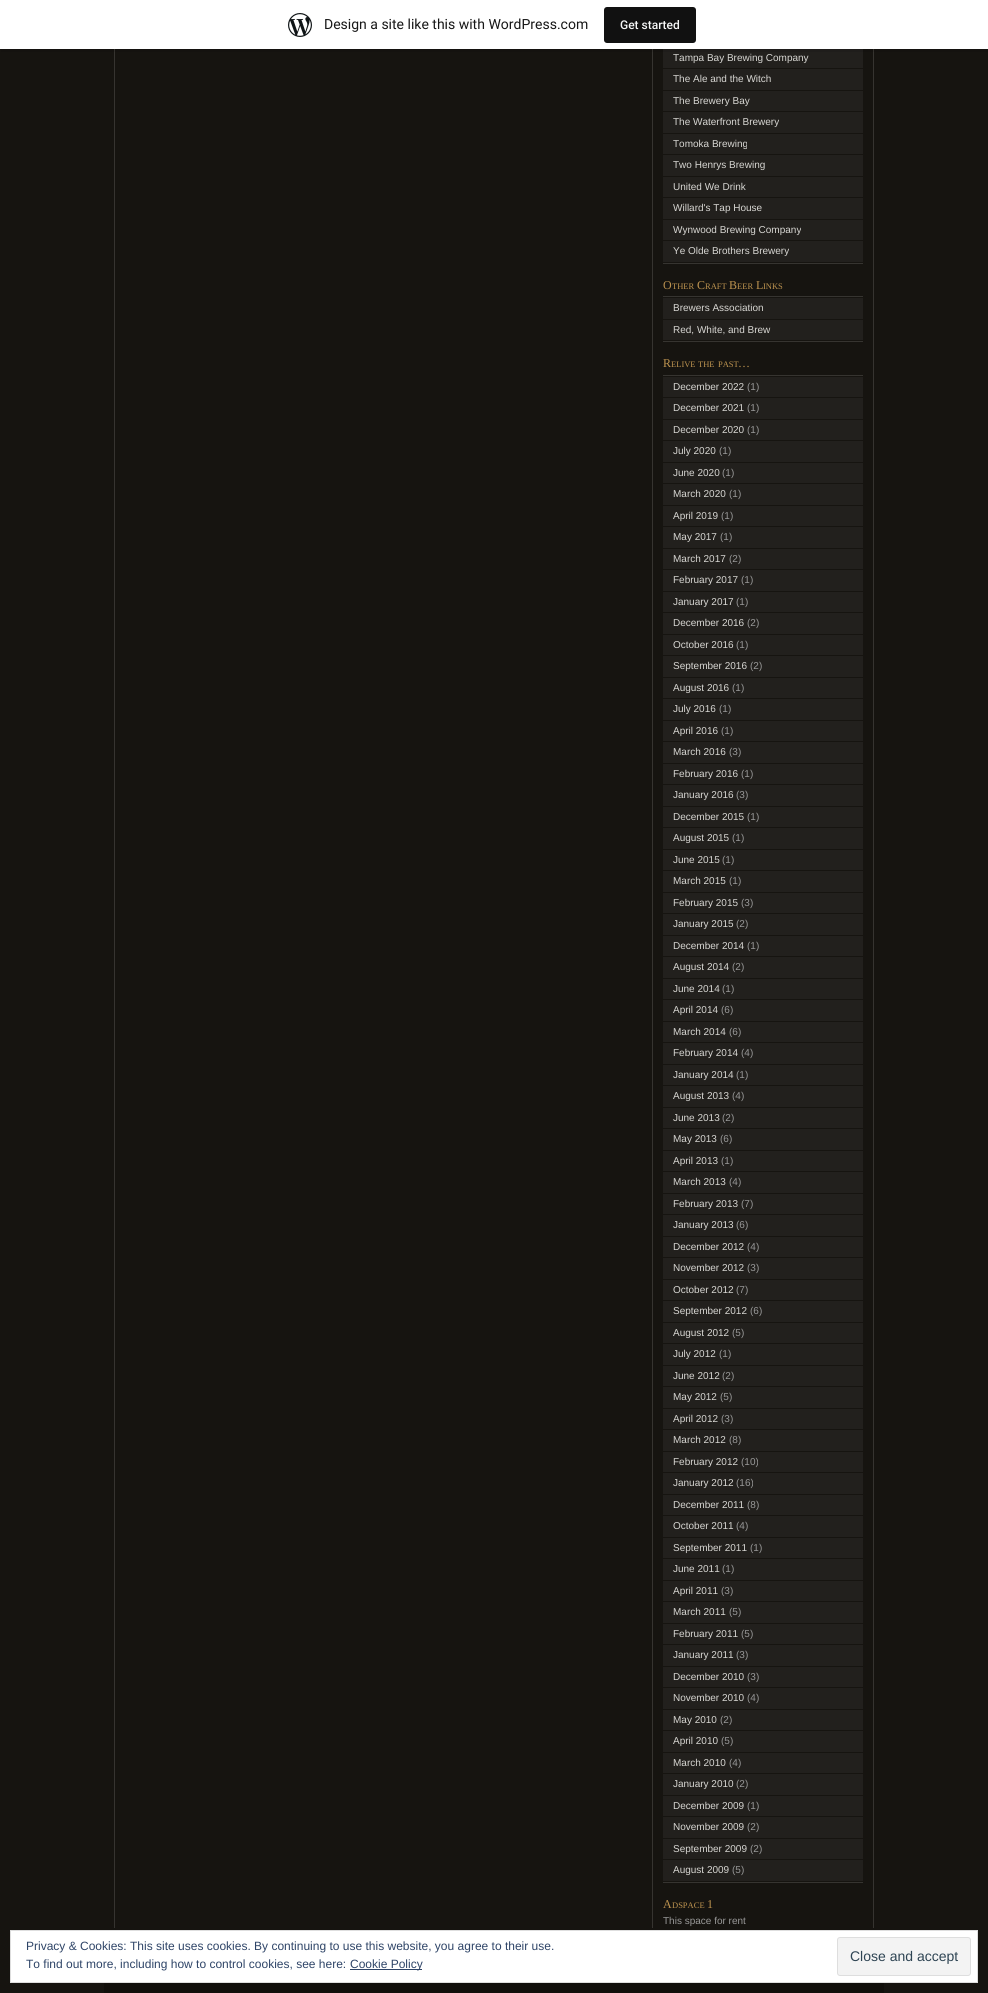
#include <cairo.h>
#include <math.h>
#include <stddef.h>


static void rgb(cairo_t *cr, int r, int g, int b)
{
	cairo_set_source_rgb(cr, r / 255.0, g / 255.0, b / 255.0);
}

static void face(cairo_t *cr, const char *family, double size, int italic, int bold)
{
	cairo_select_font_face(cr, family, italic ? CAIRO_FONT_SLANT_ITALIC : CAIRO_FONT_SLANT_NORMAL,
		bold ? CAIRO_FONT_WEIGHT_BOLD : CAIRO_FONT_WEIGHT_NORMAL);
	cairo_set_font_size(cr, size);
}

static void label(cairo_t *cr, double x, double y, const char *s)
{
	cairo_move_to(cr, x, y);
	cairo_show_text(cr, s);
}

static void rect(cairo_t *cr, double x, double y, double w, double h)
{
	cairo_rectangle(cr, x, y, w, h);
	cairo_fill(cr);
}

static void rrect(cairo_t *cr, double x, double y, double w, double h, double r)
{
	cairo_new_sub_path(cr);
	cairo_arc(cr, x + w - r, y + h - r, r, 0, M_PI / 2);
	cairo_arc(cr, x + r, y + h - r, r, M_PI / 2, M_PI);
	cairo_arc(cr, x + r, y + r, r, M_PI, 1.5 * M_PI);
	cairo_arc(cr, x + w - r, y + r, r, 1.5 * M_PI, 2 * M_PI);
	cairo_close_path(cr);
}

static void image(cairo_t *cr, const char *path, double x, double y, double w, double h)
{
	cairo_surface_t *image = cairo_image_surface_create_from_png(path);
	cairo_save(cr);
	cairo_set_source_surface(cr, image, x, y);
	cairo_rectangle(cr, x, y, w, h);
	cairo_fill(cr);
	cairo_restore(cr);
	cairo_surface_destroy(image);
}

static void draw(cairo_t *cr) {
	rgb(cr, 22, 20, 16);
	cairo_paint(cr);
	image(cr, "image1.png", 114, 49, 760, 1879);
	rgb(cr, 34, 32, 29);
	rect(cr, 663, 49, 200, 19);
	cairo_set_source_rgba(cr, 0, 0, 0, 0.08);
	cairo_new_path(cr);
	cairo_move_to(cr, 1, 49);
	cairo_line_to(cr, 1, 52);
	cairo_line_to(cr, 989, 52);
	cairo_line_to(cr, 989, 3);
	cairo_line_to(cr, 988, 3);
	cairo_line_to(cr, 988, 49);
	cairo_close_path(cr);
	cairo_fill(cr);
	rgb(cr, 255, 255, 255);
	rect(cr, 0, 0, 988, 49);
	image(cr, "image0.png", 288, 13, 24, 24);
	face(cr, "Roboto", 14, 0, 0);
	rgb(cr, 23, 23, 23);
	label(cr, 324, 29, "Design a site like this with WordPress.com");
	rgb(cr, 17, 17, 17);
	rrect(cr, 604, 7, 92, 36, 3);
	cairo_fill(cr);
	face(cr, "Roboto Medium", 12, 0, 0);
	rgb(cr, 246, 247, 247);
	label(cr, 620, 29, "Get started");
	rgb(cr, 54, 52, 48);
	rect(cr, 663, 263, 200, 1);
	face(cr, "Liberation Sans", 10, 0, 0);
	rgb(cr, 216, 215, 211);
	label(cr, 673, 61, "Tampa Bay Brewing Company");
	rgb(cr, 34, 32, 29);
	rect(cr, 663, 69, 200, 21);
	rgb(cr, 216, 215, 211);
	label(cr, 673, 82, "The Ale and the Witch");
	rgb(cr, 34, 32, 29);
	rect(cr, 663, 91, 200, 20);
	rgb(cr, 216, 215, 211);
	label(cr, 673, 104, "The Brewery Bay");
	rgb(cr, 34, 32, 29);
	rect(cr, 663, 112, 200, 21);
	rgb(cr, 216, 215, 211);
	label(cr, 673, 125, "The Waterfront Brewery");
	rgb(cr, 34, 32, 29);
	rect(cr, 663, 134, 200, 20);
	rgb(cr, 216, 215, 211);
	label(cr, 673, 147, "Tomoka Brewing");
	rgb(cr, 34, 32, 29);
	rect(cr, 663, 155, 200, 21);
	rgb(cr, 216, 215, 211);
	label(cr, 673, 168, "Two Henrys Brewing");
	rgb(cr, 34, 32, 29);
	rect(cr, 663, 177, 200, 20);
	rgb(cr, 216, 215, 211);
	label(cr, 673, 190, "United We Drink");
	rgb(cr, 34, 32, 29);
	rect(cr, 663, 198, 200, 21);
	rgb(cr, 216, 215, 211);
	label(cr, 673, 211, "Willard's Tap House");
	rgb(cr, 34, 32, 29);
	rect(cr, 663, 220, 200, 20);
	rgb(cr, 216, 215, 211);
	label(cr, 673, 233, "Wynwood Brewing Company");
	rgb(cr, 34, 32, 29);
	rect(cr, 663, 241, 200, 21);
	rgb(cr, 216, 215, 211);
	label(cr, 673, 254, "Ye Olde Brothers Brewery");
	face(cr, "Liberation Serif", 12, 0, 0);
	rgb(cr, 189, 147, 79);
	label(cr, 663, 289, "O");
	face(cr, "Liberation Serif", 8.5, 0, 0);
	label(cr, 672, 289, "THER");
	face(cr, "Liberation Serif", 12, 0, 0);
	label(cr, 697, 289, "C");
	face(cr, "Liberation Serif", 8.5, 0, 0);
	label(cr, 705, 289, "RAFT");
	face(cr, "Liberation Serif", 12, 0, 0);
	label(cr, 729, 289, "B");
	face(cr, "Liberation Serif", 8.5, 0, 0);
	label(cr, 737, 289, "EER");
	face(cr, "Liberation Serif", 12, 0, 0);
	label(cr, 756, 289, "L");
	face(cr, "Liberation Serif", 8.5, 0, 0);
	label(cr, 763, 289, "INKS");
	rgb(cr, 54, 52, 48);
	rect(cr, 663, 296, 200, 1);
	rect(cr, 663, 341, 200, 1);
	rgb(cr, 34, 32, 29);
	rect(cr, 663, 298, 200, 21);
	face(cr, "Liberation Sans", 10, 0, 0);
	rgb(cr, 216, 215, 211);
	label(cr, 673, 311, "Brewers Association");
	rgb(cr, 34, 32, 29);
	rect(cr, 663, 320, 200, 20);
	rgb(cr, 216, 215, 211);
	label(cr, 673, 333, "Red, White, and Brew");
	face(cr, "Liberation Serif", 12, 0, 0);
	rgb(cr, 189, 147, 79);
	label(cr, 663, 367, "R");
	face(cr, "Liberation Serif", 8.5, 0, 0);
	label(cr, 671, 367, "ELIVE");
	label(cr, 698, 367, "THE");
	label(cr, 718, 367, "PAST");
	face(cr, "Liberation Serif", 12, 0, 0);
	label(cr, 738, 367, "…");
	rgb(cr, 54, 52, 48);
	rect(cr, 663, 375, 200, 1);
	rect(cr, 663, 1882, 200, 1);
	rgb(cr, 34, 32, 29);
	rect(cr, 663, 377, 200, 20);
	face(cr, "Liberation Sans", 10, 0, 0);
	rgb(cr, 216, 215, 211);
	label(cr, 673, 390, "December 2022");
	rgb(cr, 153, 153, 153);
	label(cr, 747, 390, "(1)");
	rgb(cr, 34, 32, 29);
	rect(cr, 663, 398, 200, 21);
	rgb(cr, 216, 215, 211);
	label(cr, 673, 411, "December 2021");
	rgb(cr, 153, 153, 153);
	label(cr, 747, 411, "(1)");
	rgb(cr, 34, 32, 29);
	rect(cr, 663, 420, 200, 20);
	rgb(cr, 216, 215, 211);
	label(cr, 673, 433, "December 2020");
	rgb(cr, 153, 153, 153);
	label(cr, 747, 433, "(1)");
	rgb(cr, 34, 32, 29);
	rect(cr, 663, 441, 200, 21);
	rgb(cr, 216, 215, 211);
	label(cr, 673, 454, "July 2020");
	rgb(cr, 153, 153, 153);
	label(cr, 719, 454, "(1)");
	rgb(cr, 34, 32, 29);
	rect(cr, 663, 463, 200, 20);
	rgb(cr, 216, 215, 211);
	label(cr, 673, 476, "June 2020");
	rgb(cr, 153, 153, 153);
	label(cr, 722, 476, "(1)");
	rgb(cr, 34, 32, 29);
	rect(cr, 663, 484, 200, 21);
	rgb(cr, 216, 215, 211);
	label(cr, 673, 497, "March 2020");
	rgb(cr, 153, 153, 153);
	label(cr, 729, 497, "(1)");
	rgb(cr, 34, 32, 29);
	rect(cr, 663, 506, 200, 20);
	rgb(cr, 216, 215, 211);
	label(cr, 673, 519, "April 2019");
	rgb(cr, 153, 153, 153);
	label(cr, 721, 519, "(1)");
	rgb(cr, 34, 32, 29);
	rect(cr, 663, 527, 200, 21);
	rgb(cr, 216, 215, 211);
	label(cr, 673, 540, "May 2017");
	rgb(cr, 153, 153, 153);
	label(cr, 720, 540, "(1)");
	rgb(cr, 34, 32, 29);
	rect(cr, 663, 549, 200, 20);
	rgb(cr, 216, 215, 211);
	label(cr, 673, 562, "March 2017");
	rgb(cr, 153, 153, 153);
	label(cr, 729, 562, "(2)");
	rgb(cr, 34, 32, 29);
	rect(cr, 663, 570, 200, 21);
	rgb(cr, 216, 215, 211);
	label(cr, 673, 583, "February 2017");
	rgb(cr, 153, 153, 153);
	label(cr, 741, 583, "(1)");
	rgb(cr, 34, 32, 29);
	rect(cr, 663, 592, 200, 20);
	rgb(cr, 216, 215, 211);
	label(cr, 673, 605, "January 2017");
	rgb(cr, 153, 153, 153);
	label(cr, 736, 605, "(1)");
	rgb(cr, 34, 32, 29);
	rect(cr, 663, 613, 200, 21);
	rgb(cr, 216, 215, 211);
	label(cr, 673, 626, "December 2016");
	rgb(cr, 153, 153, 153);
	label(cr, 747, 626, "(2)");
	rgb(cr, 34, 32, 29);
	rect(cr, 663, 635, 200, 20);
	rgb(cr, 216, 215, 211);
	label(cr, 673, 648, "October 2016");
	rgb(cr, 153, 153, 153);
	label(cr, 736, 648, "(1)");
	rgb(cr, 34, 32, 29);
	rect(cr, 663, 656, 200, 21);
	rgb(cr, 216, 215, 211);
	label(cr, 673, 669, "September 2016");
	rgb(cr, 153, 153, 153);
	label(cr, 750, 669, "(2)");
	rgb(cr, 34, 32, 29);
	rect(cr, 663, 678, 200, 20);
	rgb(cr, 216, 215, 211);
	label(cr, 673, 691, "August 2016");
	rgb(cr, 153, 153, 153);
	label(cr, 732, 691, "(1)");
	rgb(cr, 34, 32, 29);
	rect(cr, 663, 699, 200, 21);
	rgb(cr, 216, 215, 211);
	label(cr, 673, 712, "July 2016");
	rgb(cr, 153, 153, 153);
	label(cr, 719, 712, "(1)");
	rgb(cr, 34, 32, 29);
	rect(cr, 663, 721, 200, 20);
	rgb(cr, 216, 215, 211);
	label(cr, 673, 734, "April 2016");
	rgb(cr, 153, 153, 153);
	label(cr, 721, 734, "(1)");
	rgb(cr, 34, 32, 29);
	rect(cr, 663, 742, 200, 21);
	rgb(cr, 216, 215, 211);
	label(cr, 673, 755, "March 2016");
	rgb(cr, 153, 153, 153);
	label(cr, 729, 755, "(3)");
	rgb(cr, 34, 32, 29);
	rect(cr, 663, 764, 200, 20);
	rgb(cr, 216, 215, 211);
	label(cr, 673, 777, "February 2016");
	rgb(cr, 153, 153, 153);
	label(cr, 741, 777, "(1)");
	rgb(cr, 34, 32, 29);
	rect(cr, 663, 785, 200, 21);
	rgb(cr, 216, 215, 211);
	label(cr, 673, 798, "January 2016");
	rgb(cr, 153, 153, 153);
	label(cr, 736, 798, "(3)");
	rgb(cr, 34, 32, 29);
	rect(cr, 663, 807, 200, 20);
	rgb(cr, 216, 215, 211);
	label(cr, 673, 820, "December 2015");
	rgb(cr, 153, 153, 153);
	label(cr, 747, 820, "(1)");
	rgb(cr, 34, 32, 29);
	rect(cr, 663, 828, 200, 21);
	rgb(cr, 216, 215, 211);
	label(cr, 673, 841, "August 2015");
	rgb(cr, 153, 153, 153);
	label(cr, 732, 841, "(1)");
	rgb(cr, 34, 32, 29);
	rect(cr, 663, 850, 200, 20);
	rgb(cr, 216, 215, 211);
	label(cr, 673, 863, "June 2015");
	rgb(cr, 153, 153, 153);
	label(cr, 722, 863, "(1)");
	rgb(cr, 34, 32, 29);
	rect(cr, 663, 871, 200, 21);
	rgb(cr, 216, 215, 211);
	label(cr, 673, 884, "March 2015");
	rgb(cr, 153, 153, 153);
	label(cr, 729, 884, "(1)");
	rgb(cr, 34, 32, 29);
	rect(cr, 663, 893, 200, 20);
	rgb(cr, 216, 215, 211);
	label(cr, 673, 906, "February 2015");
	rgb(cr, 153, 153, 153);
	label(cr, 741, 906, "(3)");
	rgb(cr, 34, 32, 29);
	rect(cr, 663, 914, 200, 21);
	rgb(cr, 216, 215, 211);
	label(cr, 673, 927, "January 2015");
	rgb(cr, 153, 153, 153);
	label(cr, 736, 927, "(2)");
	rgb(cr, 34, 32, 29);
	rect(cr, 663, 936, 200, 20);
	rgb(cr, 216, 215, 211);
	label(cr, 673, 949, "December 2014");
	rgb(cr, 153, 153, 153);
	label(cr, 747, 949, "(1)");
	rgb(cr, 34, 32, 29);
	rect(cr, 663, 957, 200, 21);
	rgb(cr, 216, 215, 211);
	label(cr, 673, 970, "August 2014");
	rgb(cr, 153, 153, 153);
	label(cr, 732, 970, "(2)");
	rgb(cr, 34, 32, 29);
	rect(cr, 663, 979, 200, 20);
	rgb(cr, 216, 215, 211);
	label(cr, 673, 992, "June 2014");
	rgb(cr, 153, 153, 153);
	label(cr, 722, 992, "(1)");
	rgb(cr, 34, 32, 29);
	rect(cr, 663, 1000, 200, 21);
	rgb(cr, 216, 215, 211);
	label(cr, 673, 1013, "April 2014");
	rgb(cr, 153, 153, 153);
	label(cr, 721, 1013, "(6)");
	rgb(cr, 34, 32, 29);
	rect(cr, 663, 1022, 200, 20);
	rgb(cr, 216, 215, 211);
	label(cr, 673, 1035, "March 2014");
	rgb(cr, 153, 153, 153);
	label(cr, 729, 1035, "(6)");
	rgb(cr, 34, 32, 29);
	rect(cr, 663, 1043, 200, 21);
	rgb(cr, 216, 215, 211);
	label(cr, 673, 1056, "February 2014");
	rgb(cr, 153, 153, 153);
	label(cr, 741, 1056, "(4)");
	rgb(cr, 34, 32, 29);
	rect(cr, 663, 1065, 200, 20);
	rgb(cr, 216, 215, 211);
	label(cr, 673, 1078, "January 2014");
	rgb(cr, 153, 153, 153);
	label(cr, 736, 1078, "(1)");
	rgb(cr, 34, 32, 29);
	rect(cr, 663, 1086, 200, 21);
	rgb(cr, 216, 215, 211);
	label(cr, 673, 1099, "August 2013");
	rgb(cr, 153, 153, 153);
	label(cr, 732, 1099, "(4)");
	rgb(cr, 34, 32, 29);
	rect(cr, 663, 1108, 200, 20);
	rgb(cr, 216, 215, 211);
	label(cr, 673, 1121, "June 2013");
	rgb(cr, 153, 153, 153);
	label(cr, 722, 1121, "(2)");
	rgb(cr, 34, 32, 29);
	rect(cr, 663, 1129, 200, 21);
	rgb(cr, 216, 215, 211);
	label(cr, 673, 1142, "May 2013");
	rgb(cr, 153, 153, 153);
	label(cr, 720, 1142, "(6)");
	rgb(cr, 34, 32, 29);
	rect(cr, 663, 1151, 200, 20);
	rgb(cr, 216, 215, 211);
	label(cr, 673, 1164, "April 2013");
	rgb(cr, 153, 153, 153);
	label(cr, 721, 1164, "(1)");
	rgb(cr, 34, 32, 29);
	rect(cr, 663, 1172, 200, 21);
	rgb(cr, 216, 215, 211);
	label(cr, 673, 1185, "March 2013");
	rgb(cr, 153, 153, 153);
	label(cr, 729, 1185, "(4)");
	rgb(cr, 34, 32, 29);
	rect(cr, 663, 1194, 200, 20);
	rgb(cr, 216, 215, 211);
	label(cr, 673, 1207, "February 2013");
	rgb(cr, 153, 153, 153);
	label(cr, 741, 1207, "(7)");
	rgb(cr, 34, 32, 29);
	rect(cr, 663, 1215, 200, 21);
	rgb(cr, 216, 215, 211);
	label(cr, 673, 1228, "January 2013");
	rgb(cr, 153, 153, 153);
	label(cr, 736, 1228, "(6)");
	rgb(cr, 34, 32, 29);
	rect(cr, 663, 1237, 200, 20);
	rgb(cr, 216, 215, 211);
	label(cr, 673, 1250, "December 2012");
	rgb(cr, 153, 153, 153);
	label(cr, 747, 1250, "(4)");
	rgb(cr, 34, 32, 29);
	rect(cr, 663, 1258, 200, 21);
	rgb(cr, 216, 215, 211);
	label(cr, 673, 1271, "November 2012");
	rgb(cr, 153, 153, 153);
	label(cr, 747, 1271, "(3)");
	rgb(cr, 34, 32, 29);
	rect(cr, 663, 1280, 200, 20);
	rgb(cr, 216, 215, 211);
	label(cr, 673, 1293, "October 2012");
	rgb(cr, 153, 153, 153);
	label(cr, 736, 1293, "(7)");
	rgb(cr, 34, 32, 29);
	rect(cr, 663, 1301, 200, 21);
	rgb(cr, 216, 215, 211);
	label(cr, 673, 1314, "September 2012");
	rgb(cr, 153, 153, 153);
	label(cr, 750, 1314, "(6)");
	rgb(cr, 34, 32, 29);
	rect(cr, 663, 1323, 200, 20);
	rgb(cr, 216, 215, 211);
	label(cr, 673, 1336, "August 2012");
	rgb(cr, 153, 153, 153);
	label(cr, 732, 1336, "(5)");
	rgb(cr, 34, 32, 29);
	rect(cr, 663, 1344, 200, 21);
	rgb(cr, 216, 215, 211);
	label(cr, 673, 1357, "July 2012");
	rgb(cr, 153, 153, 153);
	label(cr, 719, 1357, "(1)");
	rgb(cr, 34, 32, 29);
	rect(cr, 663, 1366, 200, 20);
	rgb(cr, 216, 215, 211);
	label(cr, 673, 1379, "June 2012");
	rgb(cr, 153, 153, 153);
	label(cr, 722, 1379, "(2)");
	rgb(cr, 34, 32, 29);
	rect(cr, 663, 1387, 200, 21);
	rgb(cr, 216, 215, 211);
	label(cr, 673, 1400, "May 2012");
	rgb(cr, 153, 153, 153);
	label(cr, 720, 1400, "(5)");
	rgb(cr, 34, 32, 29);
	rect(cr, 663, 1409, 200, 20);
	rgb(cr, 216, 215, 211);
	label(cr, 673, 1422, "April 2012");
	rgb(cr, 153, 153, 153);
	label(cr, 721, 1422, "(3)");
	rgb(cr, 34, 32, 29);
	rect(cr, 663, 1430, 200, 21);
	rgb(cr, 216, 215, 211);
	label(cr, 673, 1443, "March 2012");
	rgb(cr, 153, 153, 153);
	label(cr, 729, 1443, "(8)");
	rgb(cr, 34, 32, 29);
	rect(cr, 663, 1452, 200, 20);
	rgb(cr, 216, 215, 211);
	label(cr, 673, 1465, "February 2012");
	rgb(cr, 153, 153, 153);
	label(cr, 741, 1465, "(10)");
	rgb(cr, 34, 32, 29);
	rect(cr, 663, 1473, 200, 21);
	rgb(cr, 216, 215, 211);
	label(cr, 673, 1486, "January 2012");
	rgb(cr, 153, 153, 153);
	label(cr, 736, 1486, "(16)");
	rgb(cr, 34, 32, 29);
	rect(cr, 663, 1495, 200, 20);
	rgb(cr, 216, 215, 211);
	label(cr, 673, 1508, "December 2011");
	rgb(cr, 153, 153, 153);
	label(cr, 747, 1508, "(8)");
	rgb(cr, 34, 32, 29);
	rect(cr, 663, 1516, 200, 21);
	rgb(cr, 216, 215, 211);
	label(cr, 673, 1529, "October 2011");
	rgb(cr, 153, 153, 153);
	label(cr, 736, 1529, "(4)");
	rgb(cr, 34, 32, 29);
	rect(cr, 663, 1538, 200, 20);
	rgb(cr, 216, 215, 211);
	label(cr, 673, 1551, "September 2011");
	rgb(cr, 153, 153, 153);
	label(cr, 750, 1551, "(1)");
	rgb(cr, 34, 32, 29);
	rect(cr, 663, 1559, 200, 21);
	rgb(cr, 216, 215, 211);
	label(cr, 673, 1572, "June 2011");
	rgb(cr, 153, 153, 153);
	label(cr, 722, 1572, "(1)");
	rgb(cr, 34, 32, 29);
	rect(cr, 663, 1581, 200, 20);
	rgb(cr, 216, 215, 211);
	label(cr, 673, 1594, "April 2011");
	rgb(cr, 153, 153, 153);
	label(cr, 721, 1594, "(3)");
	rgb(cr, 34, 32, 29);
	rect(cr, 663, 1602, 200, 21);
	rgb(cr, 216, 215, 211);
	label(cr, 673, 1615, "March 2011");
	rgb(cr, 153, 153, 153);
	label(cr, 729, 1615, "(5)");
	rgb(cr, 34, 32, 29);
	rect(cr, 663, 1624, 200, 20);
	rgb(cr, 216, 215, 211);
	label(cr, 673, 1637, "February 2011");
	rgb(cr, 153, 153, 153);
	label(cr, 741, 1637, "(5)");
	rgb(cr, 34, 32, 29);
	rect(cr, 663, 1645, 200, 21);
	rgb(cr, 216, 215, 211);
	label(cr, 673, 1658, "January 2011");
	rgb(cr, 153, 153, 153);
	label(cr, 736, 1658, "(3)");
	rgb(cr, 34, 32, 29);
	rect(cr, 663, 1667, 200, 20);
	rgb(cr, 216, 215, 211);
	label(cr, 673, 1680, "December 2010");
	rgb(cr, 153, 153, 153);
	label(cr, 747, 1680, "(3)");
	rgb(cr, 34, 32, 29);
	rect(cr, 663, 1688, 200, 21);
	rgb(cr, 216, 215, 211);
	label(cr, 673, 1701, "November 2010");
	rgb(cr, 153, 153, 153);
	label(cr, 747, 1701, "(4)");
	rgb(cr, 34, 32, 29);
	rect(cr, 663, 1710, 200, 20);
	rgb(cr, 216, 215, 211);
	label(cr, 673, 1723, "May 2010");
	rgb(cr, 153, 153, 153);
	label(cr, 720, 1723, "(2)");
	rgb(cr, 34, 32, 29);
	rect(cr, 663, 1731, 200, 21);
	rgb(cr, 216, 215, 211);
	label(cr, 673, 1744, "April 2010");
	rgb(cr, 153, 153, 153);
	label(cr, 721, 1744, "(5)");
	rgb(cr, 34, 32, 29);
	rect(cr, 663, 1753, 200, 20);
	rgb(cr, 216, 215, 211);
	label(cr, 673, 1766, "March 2010");
	rgb(cr, 153, 153, 153);
	label(cr, 729, 1766, "(4)");
	rgb(cr, 34, 32, 29);
	rect(cr, 663, 1774, 200, 21);
	rgb(cr, 216, 215, 211);
	label(cr, 673, 1787, "January 2010");
	rgb(cr, 153, 153, 153);
	label(cr, 736, 1787, "(2)");
	rgb(cr, 34, 32, 29);
	rect(cr, 663, 1796, 200, 20);
	rgb(cr, 216, 215, 211);
	label(cr, 673, 1809, "December 2009");
	rgb(cr, 153, 153, 153);
	label(cr, 747, 1809, "(1)");
	rgb(cr, 34, 32, 29);
	rect(cr, 663, 1817, 200, 21);
	rgb(cr, 216, 215, 211);
	label(cr, 673, 1830, "November 2009");
	rgb(cr, 153, 153, 153);
	label(cr, 747, 1830, "(2)");
	rgb(cr, 34, 32, 29);
	rect(cr, 663, 1839, 200, 20);
	rgb(cr, 216, 215, 211);
	label(cr, 673, 1852, "September 2009");
	rgb(cr, 153, 153, 153);
	label(cr, 750, 1852, "(2)");
	rgb(cr, 34, 32, 29);
	rect(cr, 663, 1860, 200, 21);
	rgb(cr, 216, 215, 211);
	label(cr, 673, 1873, "August 2009");
	rgb(cr, 153, 153, 153);
	label(cr, 732, 1873, "(5)");
	face(cr, "Liberation Serif", 12, 0, 0);
	rgb(cr, 189, 147, 79);
	label(cr, 663, 1908, "A");
	face(cr, "Liberation Serif", 8.5, 0, 0);
	label(cr, 672, 1908, "DSPACE");
	face(cr, "Liberation Serif", 12, 0, 0);
	label(cr, 707, 1908, "1");
	face(cr, "Liberation Sans", 10, 0, 0);
	rgb(cr, 153, 153, 153);
	label(cr, 663, 1924, "This space for rent");
	rgb(cr, 255, 255, 255);
	cairo_rectangle(cr, 10.5, 1930.5, 967, 52);
	cairo_fill_preserve(cr);
	rgb(cr, 222, 222, 222);
	cairo_set_line_width(cr, 1);
	cairo_stroke(cr);
	face(cr, "Liberation Sans", 12, 0, 0);
	rgb(cr, 46, 68, 103);
	label(cr, 26, 1950, "Privacy & Cookies: This site uses cookies. By continuing to use this website, you agree to their use.");
	label(cr, 26, 1968, "To find out more, including how to control cookies, see here:");
	rect(cr, 350, 1969, 72, 1);
	label(cr, 350, 1968, "Cookie Policy");
	rgb(cr, 243, 243, 243);
	rrect(cr, 837.5, 1937.5, 133, 38, 2.5);
	cairo_fill_preserve(cr);
	rgb(cr, 222, 222, 222);
	cairo_stroke(cr);
	face(cr, "Liberation Sans", 14, 0, 0);
	rgb(cr, 46, 68, 83);
	label(cr, 850, 1961, "Close and accept");
	rgb(cr, 17, 15, 11);
	rect(cr, 104, 1983, 780, 10);
}

int main(void) {
	cairo_surface_t *surface = cairo_image_surface_create(CAIRO_FORMAT_RGB24, 988, 1993);
	cairo_t *cr = cairo_create(surface);
	cairo_font_options_t *options = cairo_font_options_create();
	cairo_font_options_set_hint_metrics(options, CAIRO_HINT_METRICS_OFF);
	cairo_font_options_set_hint_style(options, CAIRO_HINT_STYLE_NONE);
	cairo_set_font_options(cr, options);
	cairo_set_miter_limit(cr, 4);
	draw(cr);
	cairo_surface_write_to_png(surface, "render.png");
	cairo_font_options_destroy(options);
	cairo_destroy(cr);
	cairo_surface_destroy(surface);
	return 0;
}
